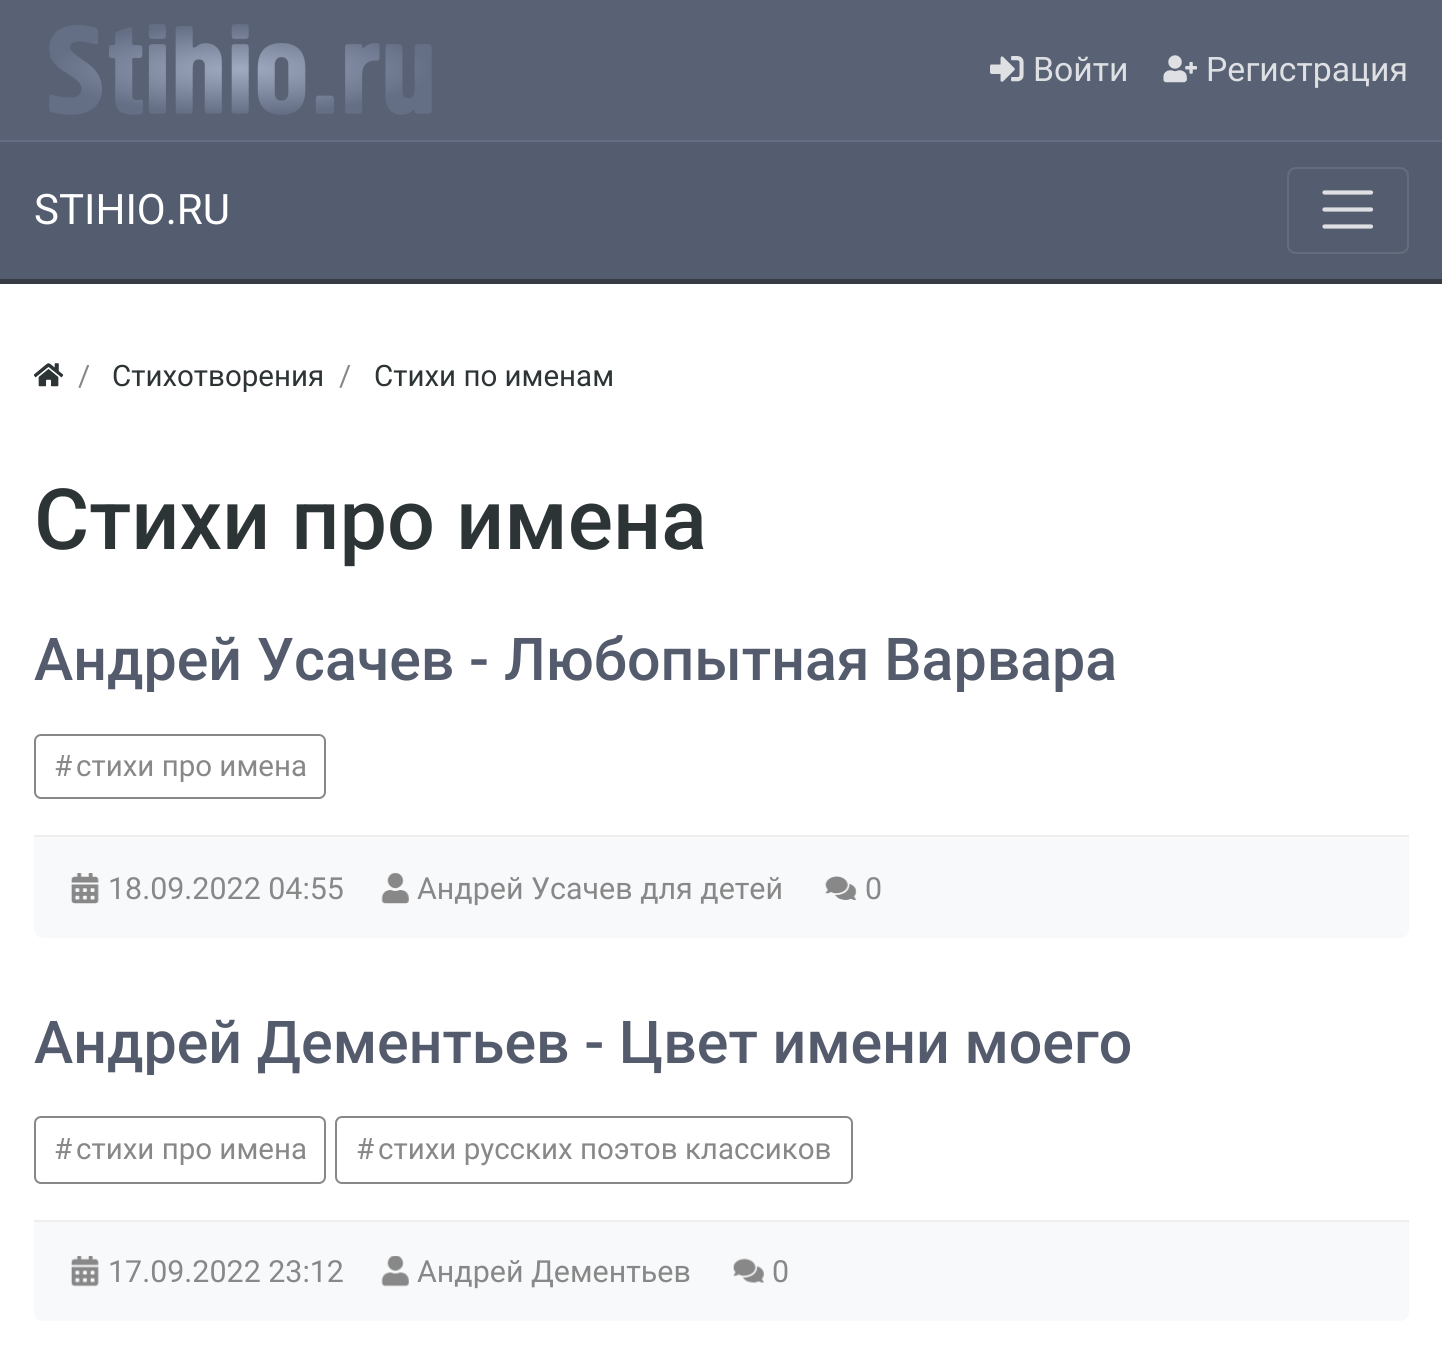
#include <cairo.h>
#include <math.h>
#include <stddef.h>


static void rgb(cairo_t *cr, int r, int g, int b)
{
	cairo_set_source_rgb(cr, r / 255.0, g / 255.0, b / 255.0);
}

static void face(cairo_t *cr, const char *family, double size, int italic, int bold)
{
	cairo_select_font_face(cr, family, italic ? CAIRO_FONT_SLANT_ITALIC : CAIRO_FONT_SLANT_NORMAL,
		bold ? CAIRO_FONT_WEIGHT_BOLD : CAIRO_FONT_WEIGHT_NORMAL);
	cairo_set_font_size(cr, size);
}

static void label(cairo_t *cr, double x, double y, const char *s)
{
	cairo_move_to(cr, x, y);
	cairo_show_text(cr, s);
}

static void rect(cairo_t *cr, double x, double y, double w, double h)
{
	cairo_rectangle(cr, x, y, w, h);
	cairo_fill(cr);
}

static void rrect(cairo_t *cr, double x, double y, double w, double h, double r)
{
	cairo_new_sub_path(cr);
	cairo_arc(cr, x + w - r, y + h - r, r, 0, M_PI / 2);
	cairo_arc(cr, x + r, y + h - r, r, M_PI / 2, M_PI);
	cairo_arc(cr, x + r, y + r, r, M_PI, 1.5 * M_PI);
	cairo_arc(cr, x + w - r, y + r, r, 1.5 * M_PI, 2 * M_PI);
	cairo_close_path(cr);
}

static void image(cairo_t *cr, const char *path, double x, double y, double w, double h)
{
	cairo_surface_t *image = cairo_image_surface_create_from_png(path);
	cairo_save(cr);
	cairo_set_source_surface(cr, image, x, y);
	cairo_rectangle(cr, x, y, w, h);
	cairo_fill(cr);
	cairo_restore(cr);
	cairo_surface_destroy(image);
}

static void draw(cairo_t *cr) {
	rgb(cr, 255, 255, 255);
	cairo_paint(cr);
	rgb(cr, 89, 98, 117);
	rect(cr, 0, 0, 1442, 140);
	rgb(cr, 99, 110, 133);
	rect(cr, 0, 140, 1442, 2);
	image(cr, "image0.png", 49, 24, 383, 91);
	image(cr, "image1.png", 990, 56, 34, 26);
	face(cr, "Roboto", 33.75, 0, 0);
	rgb(cr, 222, 224, 227);
	label(cr, 1033, 81, "Войти");
	image(cr, "image2.png", 1163, 55, 34, 28);
	label(cr, 1206, 81, "Регистрация");
	rgb(cr, 84, 93, 111);
	rect(cr, 0, 142, 1442, 137);
	rgb(cr, 54, 59, 68);
	rect(cr, 0, 279, 1442, 5);
	face(cr, "Roboto", 42, 0, 0);
	rgb(cr, 255, 255, 255);
	label(cr, 34, 224, "STIHIO.RU");
	rrect(cr, 1288, 168, 120, 85, 8);
	rgb(cr, 101, 109, 125);
	cairo_stroke(cr);
	cairo_new_path(cr);
	cairo_move_to(cr, 1324.5, 192.5);
	cairo_line_to(cr, 1371, 192.5);
	cairo_move_to(cr, 1324.5, 209.5);
	cairo_line_to(cr, 1371, 209.5);
	cairo_move_to(cr, 1324.5, 226.5);
	cairo_line_to(cr, 1371, 226.5);
	rgb(cr, 221, 223, 226);
	cairo_set_line_width(cr, 4.2);
	cairo_set_line_cap(cr, CAIRO_LINE_CAP_ROUND);
	cairo_stroke(cr);
	image(cr, "image3.png", 34, 363, 30, 24);
	face(cr, "Roboto", 29.5, 0, 0);
	rgb(cr, 136, 136, 136);
	label(cr, 78, 386, "/");
	rgb(cr, 45, 52, 54);
	label(cr, 112, 386, "Стихотворения");
	rgb(cr, 136, 136, 136);
	label(cr, 339, 386, "/");
	rgb(cr, 45, 52, 54);
	label(cr, 374, 386, "Стихи по именам");
	face(cr, "Roboto Medium", 84.5, 0, 0);
	label(cr, 34, 549, "Стихи про имена");
	face(cr, "Roboto Medium", 59.1, 0, 0);
	rgb(cr, 83, 91, 108);
	label(cr, 34, 680, "Андрей Усачев - Любопытная Варвара");
	rrect(cr, 35, 735, 290, 63, 6);
	rgb(cr, 136, 136, 136);
	cairo_set_line_width(cr, 2);
	cairo_set_line_cap(cr, CAIRO_LINE_CAP_BUTT);
	cairo_stroke(cr);
	face(cr, "Roboto", 29.5, 0, 0);
	label(cr, 54, 776, "#");
	label(cr, 76, 776, "стихи про имена");
	rgb(cr, 248, 249, 250);
	cairo_new_path(cr);
	cairo_move_to(cr, 34, 835);
	cairo_line_to(cr, 1409, 835);
	cairo_line_to(cr, 1409, 929);
	cairo_curve_to(cr, 1409, 934, 1405, 938, 1400, 938);
	cairo_line_to(cr, 43, 938);
	cairo_curve_to(cr, 38, 938, 34, 934, 34, 929);
	cairo_close_path(cr);
	cairo_fill(cr);
	rgb(cr, 238, 238, 238);
	rect(cr, 34, 835, 1375, 2);
	image(cr, "image4.png", 71, 873, 28, 31);
	face(cr, "Roboto", 30.4, 0, 0);
	rgb(cr, 136, 136, 136);
	label(cr, 108, 899, "18.09.2022 04:55");
	image(cr, "image5.png", 381, 873, 28, 31);
	label(cr, 417, 899, "Андрей Усачев для детей");
	image(cr, "image6.png", 825, 876, 32, 24);
	label(cr, 865, 899, "0");
	face(cr, "Roboto Medium", 59.1, 0, 0);
	rgb(cr, 83, 91, 108);
	label(cr, 34, 1063, "Андрей Дементьев - Цвет имени моего");
	rrect(cr, 35, 1117, 290, 66, 6);
	rgb(cr, 136, 136, 136);
	cairo_stroke(cr);
	face(cr, "Roboto", 29.5, 0, 0);
	label(cr, 54, 1159, "#");
	label(cr, 76, 1159, "стихи про имена");
	rrect(cr, 336, 1117, 516, 66, 6);
	cairo_stroke(cr);
	label(cr, 356, 1159, "#");
	label(cr, 378, 1159, "стихи русских поэтов классиков");
	rgb(cr, 248, 249, 250);
	cairo_new_path(cr);
	cairo_move_to(cr, 34, 1220);
	cairo_line_to(cr, 1409, 1220);
	cairo_line_to(cr, 1409, 1312);
	cairo_curve_to(cr, 1409, 1317, 1405, 1321, 1400, 1321);
	cairo_line_to(cr, 43, 1321);
	cairo_curve_to(cr, 38, 1321, 34, 1317, 34, 1312);
	cairo_close_path(cr);
	cairo_fill(cr);
	rgb(cr, 238, 238, 238);
	rect(cr, 34, 1220, 1375, 2);
	image(cr, "image7.png", 71, 1256, 28, 31);
	face(cr, "Roboto", 30.4, 0, 0);
	rgb(cr, 136, 136, 136);
	label(cr, 108, 1282, "17.09.2022 23:12");
	image(cr, "image8.png", 381, 1256, 28, 31);
	label(cr, 417, 1282, "Андрей Дементьев");
	image(cr, "image9.png", 733, 1258, 31, 25);
	label(cr, 772, 1282, "0");
}

int main(void) {
	cairo_surface_t *surface = cairo_image_surface_create(CAIRO_FORMAT_RGB24, 1442, 1364);
	cairo_t *cr = cairo_create(surface);
	cairo_font_options_t *options = cairo_font_options_create();
	cairo_font_options_set_hint_metrics(options, CAIRO_HINT_METRICS_OFF);
	cairo_font_options_set_hint_style(options, CAIRO_HINT_STYLE_NONE);
	cairo_set_font_options(cr, options);
	cairo_set_miter_limit(cr, 4);
	draw(cr);
	cairo_surface_write_to_png(surface, "render.png");
	cairo_font_options_destroy(options);
	cairo_destroy(cr);
	cairo_surface_destroy(surface);
	return 0;
}
